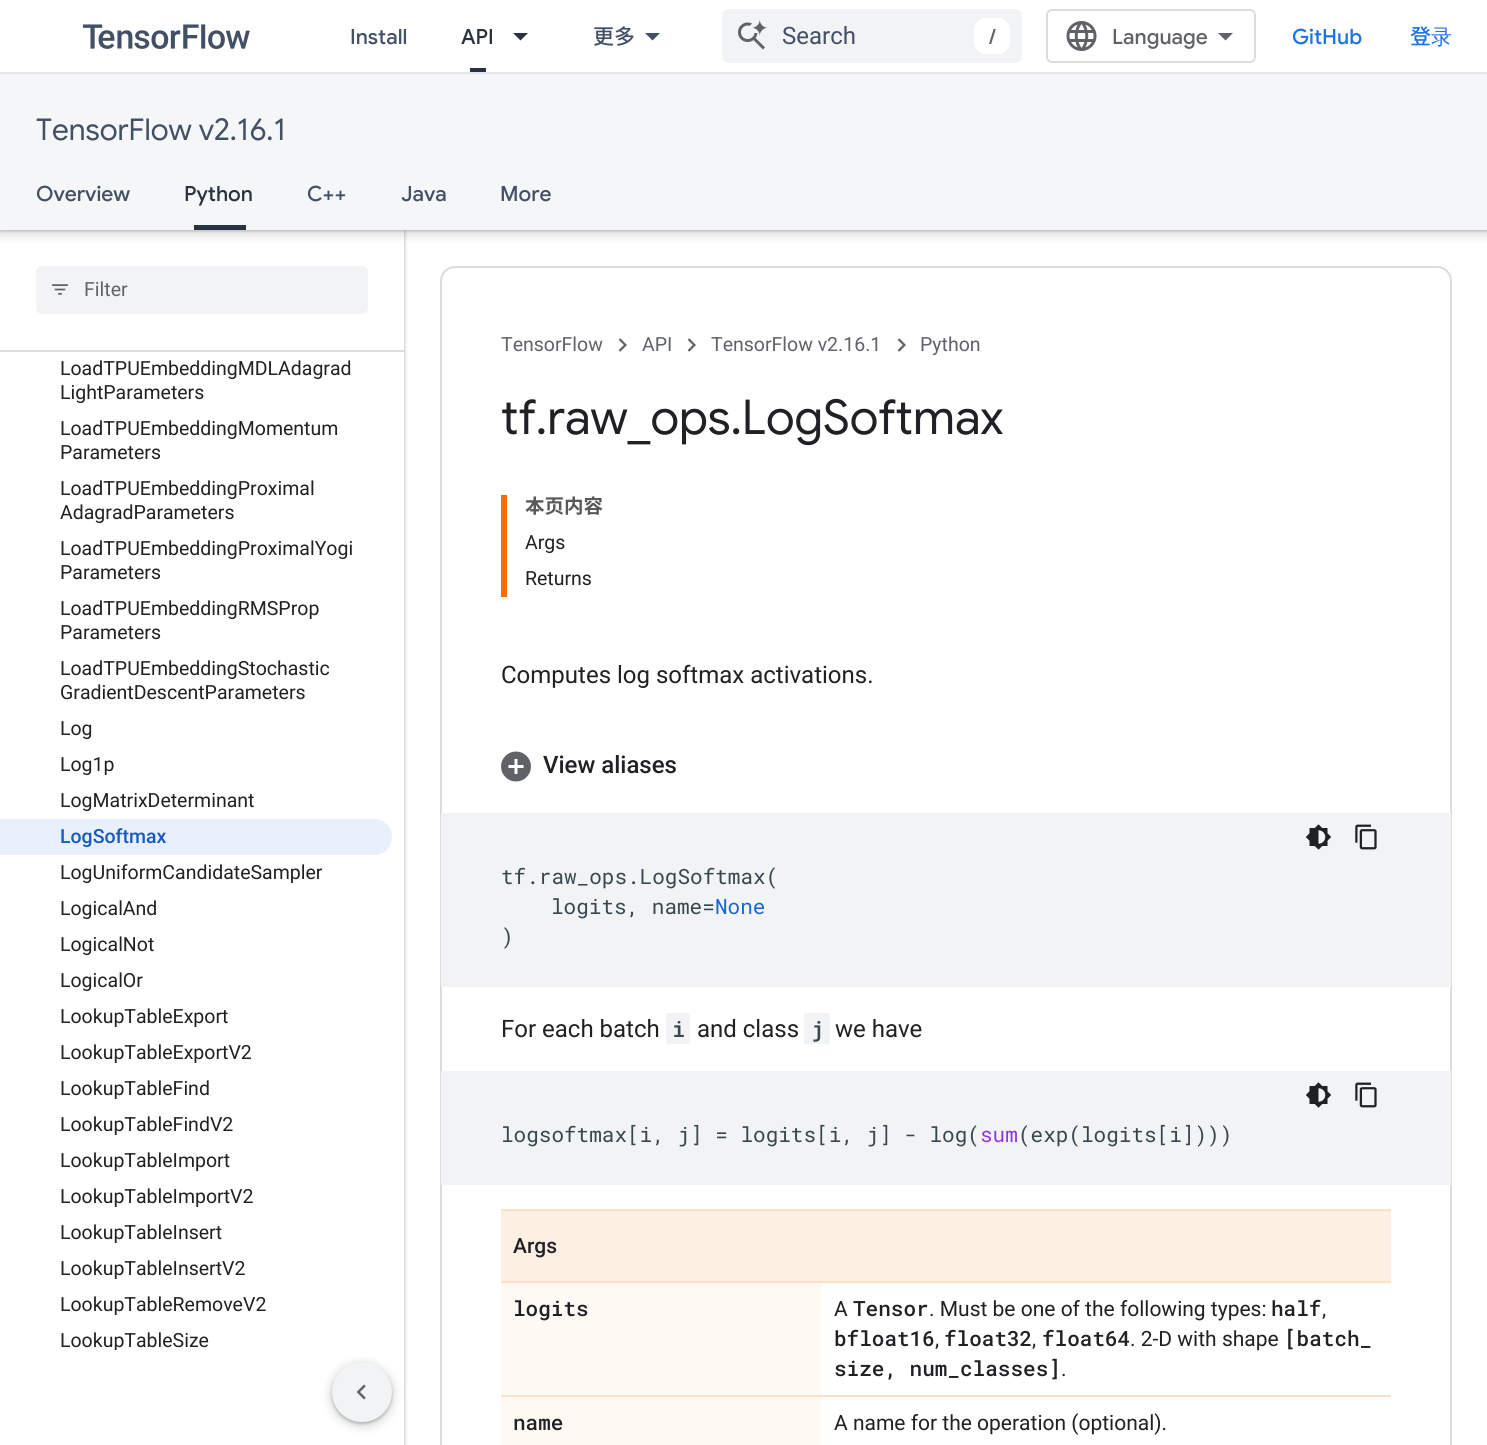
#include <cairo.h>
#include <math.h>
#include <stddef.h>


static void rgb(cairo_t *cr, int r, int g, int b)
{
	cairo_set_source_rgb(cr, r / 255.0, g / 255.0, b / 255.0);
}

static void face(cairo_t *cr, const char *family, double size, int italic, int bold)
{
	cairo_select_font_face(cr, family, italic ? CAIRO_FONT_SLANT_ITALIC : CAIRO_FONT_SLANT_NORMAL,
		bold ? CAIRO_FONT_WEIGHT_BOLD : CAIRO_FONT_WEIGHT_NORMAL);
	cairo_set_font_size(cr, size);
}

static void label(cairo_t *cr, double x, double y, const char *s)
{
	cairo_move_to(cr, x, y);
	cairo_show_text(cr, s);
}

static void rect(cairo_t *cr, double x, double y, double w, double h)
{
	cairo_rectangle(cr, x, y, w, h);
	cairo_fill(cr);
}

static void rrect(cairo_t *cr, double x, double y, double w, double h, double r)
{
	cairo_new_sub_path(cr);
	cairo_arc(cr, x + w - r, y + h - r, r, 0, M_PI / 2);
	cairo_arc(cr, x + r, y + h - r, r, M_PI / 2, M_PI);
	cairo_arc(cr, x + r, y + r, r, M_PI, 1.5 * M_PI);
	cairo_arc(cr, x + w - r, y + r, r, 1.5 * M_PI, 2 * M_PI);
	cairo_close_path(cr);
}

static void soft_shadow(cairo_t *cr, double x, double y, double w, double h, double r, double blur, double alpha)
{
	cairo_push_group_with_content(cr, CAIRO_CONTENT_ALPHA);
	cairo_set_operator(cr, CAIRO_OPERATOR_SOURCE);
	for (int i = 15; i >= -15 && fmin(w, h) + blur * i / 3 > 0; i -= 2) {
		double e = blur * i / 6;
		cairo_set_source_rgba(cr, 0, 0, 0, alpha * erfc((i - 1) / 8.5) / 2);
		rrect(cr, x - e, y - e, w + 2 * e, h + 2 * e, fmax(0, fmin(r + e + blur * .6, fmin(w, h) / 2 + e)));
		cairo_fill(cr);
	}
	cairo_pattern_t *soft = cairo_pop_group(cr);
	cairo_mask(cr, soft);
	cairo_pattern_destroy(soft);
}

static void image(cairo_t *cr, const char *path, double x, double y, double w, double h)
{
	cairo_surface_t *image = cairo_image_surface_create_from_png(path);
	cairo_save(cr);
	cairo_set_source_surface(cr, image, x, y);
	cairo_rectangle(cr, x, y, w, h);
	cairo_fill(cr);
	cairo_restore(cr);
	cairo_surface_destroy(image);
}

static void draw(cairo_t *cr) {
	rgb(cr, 255, 255, 255);
	cairo_paint(cr);
	rgb(cr, 60, 64, 67);
	soft_shadow(cr, -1, 0, 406, 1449, 0, 2, 0.15);
	soft_shadow(cr, 0, 2, 404, 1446, 0, 1.5, 0.3);
	rgb(cr, 255, 255, 255);
	rect(cr, 0, 352, 404, 998);
	rect(cr, 0, 230, 404, 120);
	rgb(cr, 60, 64, 67);
	soft_shadow(cr, -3, 74, 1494, 162, 0, 4.5, 0.15);
	soft_shadow(cr, 0, 75, 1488, 156, 0, 1.5, 0.3);
	rgb(cr, 255, 255, 255);
	rect(cr, 0, 0, 1487, 72);
	rgb(cr, 230, 230, 230);
	rect(cr, 0, 72, 1487, 2);
	image(cr, "image0.png", 82, 24, 168, 25);
	face(cr, "Google Sans Medium", 21, 0, 0);
	rgb(cr, 66, 80, 102);
	label(cr, 350, 44, "Install");
	rgb(cr, 41, 50, 65);
	label(cr, 461, 44, "API");
	rect(cr, 470, 68, 16, 4);
	cairo_new_path(cr);
	cairo_move_to(cr, 513, 33);
	cairo_line_to(cr, 528, 33);
	cairo_line_to(cr, 520.5, 40.5);
	cairo_close_path(cr);
	cairo_fill(cr);
	face(cr, "Noto Sans JP Medium", 21, 0, 0);
	rgb(cr, 66, 80, 102);
	label(cr, 593, 44, "更多");
	cairo_new_path(cr);
	cairo_move_to(cr, 645, 33);
	cairo_line_to(cr, 660, 33);
	cairo_line_to(cr, 652.5, 40.5);
	cairo_close_path(cr);
	cairo_fill(cr);
	rgb(cr, 241, 243, 244);
	rrect(cr, 722, 9, 300, 54, 6);
	cairo_fill(cr);
	image(cr, "image1.png", 738, 20, 30, 30);
	face(cr, "Roboto", 24, 0, 0);
	rgb(cr, 66, 80, 102);
	label(cr, 782, 44, "Search");
	rgb(cr, 255, 255, 255);
	rrect(cr, 974, 18, 36, 36, 12);
	cairo_fill(cr);
	face(cr, "Google Sans Medium", 21, 0, 0);
	rgb(cr, 95, 99, 104);
	label(cr, 989, 44, "/");
	rrect(cr, 1047, 10, 208, 52, 5);
	rgb(cr, 218, 220, 224);
	cairo_stroke(cr);
	image(cr, "image2.png", 1066, 21, 31, 30);
	rgb(cr, 95, 99, 104);
	label(cr, 1112, 44, "Language");
	cairo_new_path(cr);
	cairo_move_to(cr, 1225.5, 40.5);
	cairo_line_to(cr, 1218, 33);
	cairo_line_to(cr, 1233, 33);
	cairo_close_path(cr);
	cairo_fill(cr);
	rgb(cr, 26, 115, 232);
	label(cr, 1292, 44, "GitHub");
	face(cr, "Noto Sans JP Medium", 21, 0, 0);
	label(cr, 1410, 44, "登");
	face(cr, "WenQuanYi Zen Hei Medium", 21, 0, 0);
	label(cr, 1431, 44, "录");
	rgb(cr, 245, 246, 247);
	rect(cr, 0, 74, 1487, 156);
	face(cr, "Google Sans", 30, 0, 0);
	rgb(cr, 66, 80, 102);
	label(cr, 36, 140, "TensorFlow v2.16.1");
	face(cr, "Google Sans Medium", 21, 0, 0);
	label(cr, 36, 201, "Overview");
	rgb(cr, 41, 50, 65);
	label(cr, 184, 201, "Python");
	rect(cr, 194, 225, 52, 5);
	rgb(cr, 66, 80, 102);
	label(cr, 307, 201, "C++");
	label(cr, 401, 201, "Java");
	label(cr, 500, 201, "More");
	rgb(cr, 218, 220, 224);
	rect(cr, 0, 350, 404, 2);
	rgb(cr, 241, 243, 244);
	rrect(cr, 36, 266, 332, 48, 6);
	cairo_fill(cr);
	image(cr, "image3.png", 52, 284, 16, 11);
	face(cr, "Roboto", 19.5, 0, 0);
	rgb(cr, 95, 99, 104);
	label(cr, 84, 296, "Filter");
	rgb(cr, 32, 33, 36);
	label(cr, 60, 375, "LoadTPUEmbeddingMDLAdagrad");
	label(cr, 60, 399, "LightParameters");
	label(cr, 60, 435, "LoadTPUEmbeddingMomentum");
	label(cr, 60, 459, "Parameters");
	label(cr, 60, 495, "LoadTPUEmbeddingProximal");
	label(cr, 60, 519, "AdagradParameters");
	label(cr, 60, 555, "LoadTPUEmbeddingProximalYogi");
	label(cr, 60, 579, "Parameters");
	label(cr, 60, 615, "LoadTPUEmbeddingRMSProp");
	label(cr, 60, 639, "Parameters");
	label(cr, 60, 675, "LoadTPUEmbeddingStochastic");
	label(cr, 60, 699, "GradientDescentParameters");
	label(cr, 60, 735, "Log");
	label(cr, 60, 771, "Log1p");
	label(cr, 60, 807, "LogMatrixDeterminant");
	rgb(cr, 232, 240, 254);
	cairo_new_path(cr);
	cairo_move_to(cr, 0, 819);
	cairo_line_to(cr, 374, 819);
	cairo_curve_to(cr, 384, 819, 392, 827, 392, 837);
	cairo_curve_to(cr, 392, 847, 384, 855, 374, 855);
	cairo_line_to(cr, 0, 855);
	cairo_close_path(cr);
	cairo_fill(cr);
	face(cr, "Roboto Medium", 19.5, 0, 0);
	rgb(cr, 24, 90, 188);
	label(cr, 60, 843, "LogSoftmax");
	face(cr, "Roboto", 19.5, 0, 0);
	rgb(cr, 32, 33, 36);
	label(cr, 60, 879, "LogUniformCandidateSampler");
	label(cr, 60, 915, "LogicalAnd");
	label(cr, 60, 951, "LogicalNot");
	label(cr, 60, 987, "LogicalOr");
	label(cr, 60, 1023, "LookupTableExport");
	label(cr, 60, 1059, "LookupTableExportV2");
	label(cr, 60, 1095, "LookupTableFind");
	label(cr, 60, 1131, "LookupTableFindV2");
	label(cr, 60, 1167, "LookupTableImport");
	label(cr, 60, 1203, "LookupTableImportV2");
	label(cr, 60, 1239, "LookupTableInsert");
	label(cr, 60, 1275, "LookupTableInsertV2");
	label(cr, 60, 1311, "LookupTableRemoveV2");
	label(cr, 60, 1347, "LookupTableSize");
	rgb(cr, 255, 255, 255);
	rect(cr, 0, 1350, 404, 95);
	rgb(cr, 60, 64, 67);
	soft_shadow(cr, 329, 1362, 66, 66, 33, 4.5, 0.15);
	soft_shadow(cr, 332, 1364, 60, 60, 30, 1.5, 0.3);
	rgb(cr, 241, 243, 244);
	cairo_arc(cr, 362, 1392, 30, 0, 2 * M_PI);
	cairo_fill(cr);
	image(cr, "image4.png", 356, 1384, 10, 16);
	rrect(cr, 441, 267, 1010, 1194, 14);
	rgb(cr, 218, 220, 224);
	cairo_stroke(cr);
	rgb(cr, 95, 99, 104);
	label(cr, 501, 351, "TensorFlow");
	image(cr, "image5.png", 618, 338, 9, 14);
	label(cr, 642, 351, "API");
	image(cr, "image5.png", 687, 338, 9, 14);
	label(cr, 711, 351, "TensorFlow v2.16.1");
	image(cr, "image5.png", 897, 338, 9, 14);
	label(cr, 920, 351, "Python");
	face(cr, "Google Sans", 48, 0, 0);
	rgb(cr, 32, 33, 36);
	label(cr, 501, 434, "tf.raw_ops.LogSoftmax");
	rgb(cr, 255, 111, 0);
	rect(cr, 501, 495, 6, 102);
	face(cr, "Noto Sans JP", 19.5, 0, 1);
	rgb(cr, 89, 89, 89);
	label(cr, 525, 513, "本页内容");
	face(cr, "Roboto", 19.5, 0, 0);
	rgb(cr, 32, 33, 36);
	label(cr, 525, 549, "Args");
	label(cr, 525, 585, "Returns");
	face(cr, "Roboto", 24, 0, 0);
	label(cr, 501, 683, "Computes log softmax activations.");
	image(cr, "image6.png", 501, 751, 30, 31);
	face(cr, "Roboto Medium", 24, 0, 0);
	label(cr, 543, 773, "View aliases");
	rgb(cr, 241, 243, 244);
	rect(cr, 441, 813, 1010, 174);
	image(cr, "image7.png", 1306, 824, 26, 26);
	image(cr, "image8.png", 1355, 824, 22, 26);
	face(cr, "Roboto Mono", 21, 0, 0);
	rgb(cr, 55, 71, 79);
	label(cr, 501, 884, "tf.raw_ops.LogSoftmax(");
	label(cr, 551, 914, "logits, name=");
	rgb(cr, 25, 103, 210);
	label(cr, 715, 914, "None");
	rgb(cr, 55, 71, 79);
	label(cr, 501, 944, ")");
	face(cr, "Roboto", 24, 0, 0);
	rgb(cr, 32, 33, 36);
	label(cr, 501, 1037, "For each batch");
	rgb(cr, 241, 243, 244);
	rect(cr, 666, 1013, 24, 31);
	face(cr, "Roboto Mono Medium", 22, 0, 0);
	rgb(cr, 55, 71, 79);
	label(cr, 672, 1037, "i");
	face(cr, "Roboto", 24, 0, 0);
	rgb(cr, 32, 33, 36);
	label(cr, 697, 1037, "and class");
	rgb(cr, 241, 243, 244);
	rect(cr, 804, 1013, 26, 31);
	face(cr, "Roboto Mono Medium", 22, 0, 0);
	rgb(cr, 55, 71, 79);
	label(cr, 811, 1037, "j");
	face(cr, "Roboto", 24, 0, 0);
	rgb(cr, 32, 33, 36);
	label(cr, 835, 1037, "we have");
	rgb(cr, 241, 243, 244);
	rect(cr, 441, 1071, 1010, 114);
	image(cr, "image7.png", 1306, 1082, 26, 26);
	image(cr, "image8.png", 1355, 1082, 22, 26);
	face(cr, "Roboto Mono", 21, 0, 0);
	rgb(cr, 55, 71, 79);
	label(cr, 501, 1142, "logsoftmax[i, j] = logits[i, j] - log(");
	rgb(cr, 147, 52, 230);
	label(cr, 980, 1142, "sum");
	rgb(cr, 55, 71, 79);
	label(cr, 1018, 1142, "(exp(logits[i])))");
	rgb(cr, 254, 239, 227);
	rect(cr, 501, 1211, 890, 70);
	rgb(cr, 254, 223, 200);
	rect(cr, 501, 1209, 890, 2);
	rect(cr, 501, 1281, 890, 2);
	face(cr, "Roboto Medium", 21, 0, 0);
	rgb(cr, 32, 33, 36);
	label(cr, 513, 1253, "Args");
	rgb(cr, 254, 223, 200);
	rect(cr, 501, 1395, 890, 2);
	rgb(cr, 255, 249, 244);
	rect(cr, 501, 1283, 321, 112);
	face(cr, "Roboto Mono Medium", 21, 0, 0);
	rgb(cr, 32, 33, 36);
	label(cr, 513, 1316, "logits");
	face(cr, "Roboto", 21, 0, 0);
	label(cr, 834, 1316, "A");
	face(cr, "Roboto Mono Medium", 21, 0, 0);
	label(cr, 853, 1316, "Tensor");
	face(cr, "Roboto", 21, 0, 0);
	label(cr, 929, 1316, ". Must be one of the following types:");
	face(cr, "Roboto Mono Medium", 21, 0, 0);
	label(cr, 1271, 1316, "half");
	face(cr, "Roboto", 21, 0, 0);
	label(cr, 1322, 1316, ",");
	face(cr, "Roboto Mono Medium", 21, 0, 0);
	label(cr, 834, 1346, "bfloat16");
	face(cr, "Roboto", 21, 0, 0);
	label(cr, 935, 1346, ",");
	face(cr, "Roboto Mono Medium", 21, 0, 0);
	label(cr, 944, 1346, "float32");
	face(cr, "Roboto", 21, 0, 0);
	label(cr, 1032, 1346, ",");
	face(cr, "Roboto Mono Medium", 21, 0, 0);
	label(cr, 1042, 1346, "float64");
	face(cr, "Roboto", 21, 0, 0);
	label(cr, 1130, 1346, ". 2-D with shape");
	face(cr, "Roboto Mono Medium", 21, 0, 0);
	label(cr, 1284, 1346, "[batch_");
	label(cr, 834, 1376, "size, num_classes]");
	face(cr, "Roboto", 21, 0, 0);
	label(cr, 1061, 1376, ".");
	rgb(cr, 255, 249, 244);
	rect(cr, 501, 1397, 321, 48);
	face(cr, "Roboto Mono Medium", 21, 0, 0);
	rgb(cr, 32, 33, 36);
	label(cr, 513, 1430, "name");
	face(cr, "Roboto", 21, 0, 0);
	label(cr, 834, 1430, "A name for the operation (optional).");
}

int main(void) {
	cairo_surface_t *surface = cairo_image_surface_create(CAIRO_FORMAT_RGB24, 1487, 1445);
	cairo_t *cr = cairo_create(surface);
	cairo_font_options_t *options = cairo_font_options_create();
	cairo_font_options_set_hint_metrics(options, CAIRO_HINT_METRICS_OFF);
	cairo_font_options_set_hint_style(options, CAIRO_HINT_STYLE_NONE);
	cairo_set_font_options(cr, options);
	cairo_set_miter_limit(cr, 4);
	draw(cr);
	cairo_surface_write_to_png(surface, "render.png");
	cairo_font_options_destroy(options);
	cairo_destroy(cr);
	cairo_surface_destroy(surface);
	return 0;
}
